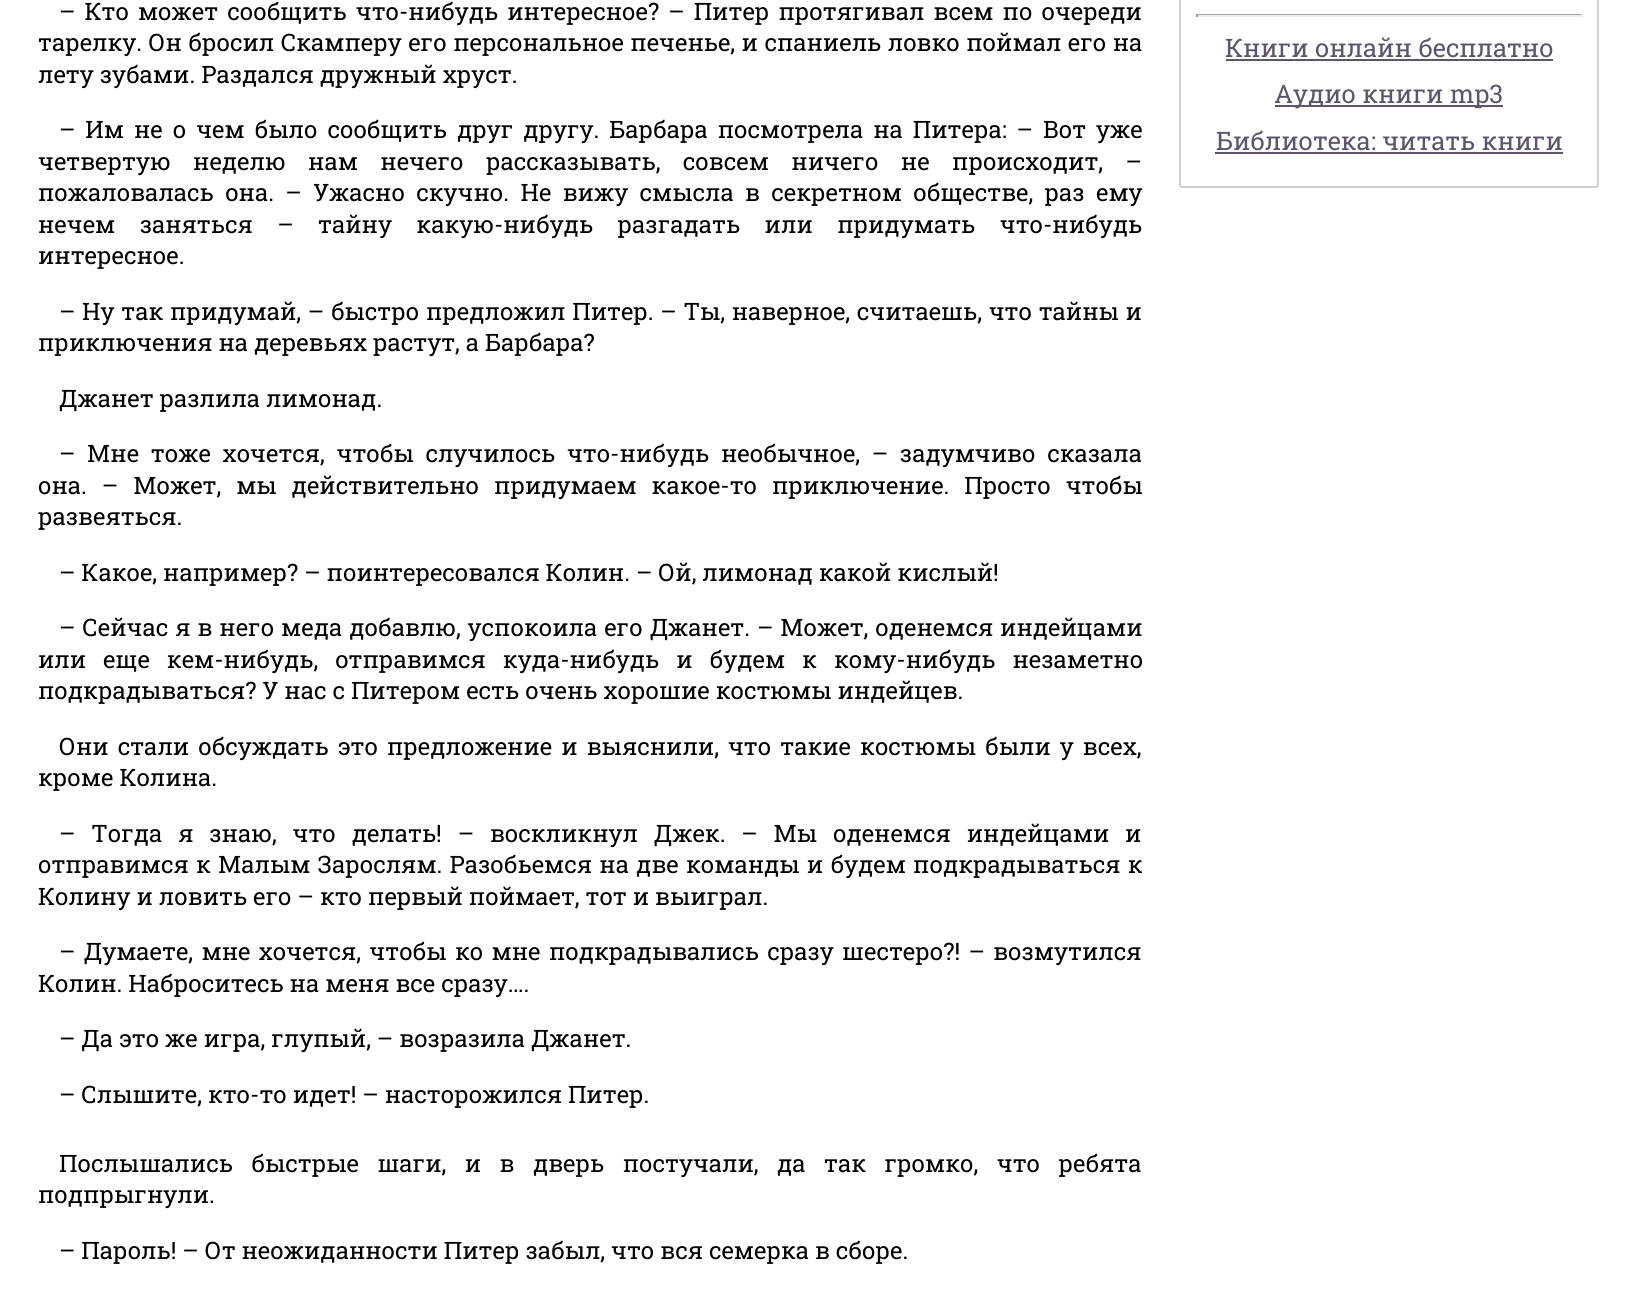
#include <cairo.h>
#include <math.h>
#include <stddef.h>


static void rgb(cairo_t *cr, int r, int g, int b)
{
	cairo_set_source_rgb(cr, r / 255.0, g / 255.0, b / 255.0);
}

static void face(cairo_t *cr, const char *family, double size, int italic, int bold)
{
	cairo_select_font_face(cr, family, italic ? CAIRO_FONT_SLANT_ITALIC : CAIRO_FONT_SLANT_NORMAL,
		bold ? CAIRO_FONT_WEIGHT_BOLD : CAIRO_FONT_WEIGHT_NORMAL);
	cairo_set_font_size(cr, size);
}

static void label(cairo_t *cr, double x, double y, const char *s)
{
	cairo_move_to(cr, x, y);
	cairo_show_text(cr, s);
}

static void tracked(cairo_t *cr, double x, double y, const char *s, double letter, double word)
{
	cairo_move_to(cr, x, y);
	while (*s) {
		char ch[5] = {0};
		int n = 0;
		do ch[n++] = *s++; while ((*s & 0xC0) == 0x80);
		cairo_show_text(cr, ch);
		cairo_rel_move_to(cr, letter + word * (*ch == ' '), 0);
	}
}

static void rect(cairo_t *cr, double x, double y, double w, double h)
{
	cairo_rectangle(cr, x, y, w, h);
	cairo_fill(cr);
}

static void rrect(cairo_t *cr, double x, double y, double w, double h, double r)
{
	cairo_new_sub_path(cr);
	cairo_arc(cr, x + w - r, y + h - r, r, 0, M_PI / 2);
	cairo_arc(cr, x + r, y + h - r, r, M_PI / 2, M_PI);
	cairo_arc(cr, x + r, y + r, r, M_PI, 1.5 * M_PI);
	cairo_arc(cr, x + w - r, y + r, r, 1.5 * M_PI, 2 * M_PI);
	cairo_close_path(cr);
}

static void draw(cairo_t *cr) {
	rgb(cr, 255, 255, 255);
	cairo_paint(cr);
	face(cr, "Roboto Slab", 24, 0, 0);
	rgb(cr, 0, 0, 0);
	tracked(cr, 59, 20, "– Кто может сообщить что-нибудь интересное? – Питер протягивал всем по очереди", 0, 3.1);
	tracked(cr, 38, 51, "тарелку. Он бросил Скамперу его персональное печенье, и спаниель ловко поймал его на", 0, 0.5);
	label(cr, 38, 83, "лету зубами. Раздался дружный хруст.");
	tracked(cr, 59, 138, "– Им не о чем было сообщить друг другу. Барбара посмотрела на Питера: – Вот уже", 0, 4);
	tracked(cr, 38, 170, "четвертую неделю нам нечего рассказывать, совсем ничего не происходит, –", 0, 16.5);
	tracked(cr, 38, 201, "пожаловалась она. – Ужасно скучно. Не вижу смысла в секретном обществе, раз ему", 0, 5.4);
	tracked(cr, 38, 233, "нечем заняться – тайну какую-нибудь разгадать или придумать что-нибудь", 0, 18.5);
	label(cr, 38, 264, "интересное.");
	tracked(cr, 59, 320, "– Ну так придумай, – быстро предложил Питер. – Ты, наверное, считаешь, что тайны и", 0, 0.75);
	label(cr, 38, 351, "приключения на деревьях растут, а Барбара?");
	label(cr, 59, 407, "Джанет разлила лимонад.");
	tracked(cr, 59, 462, "– Мне тоже хочется, чтобы случилось что-нибудь необычное, – задумчиво сказала", 0, 5.75);
	tracked(cr, 38, 494, "она. – Может, мы действительно придумаем какое-то приключение. Просто чтобы", 0, 9);
	label(cr, 38, 525, "развеяться.");
	label(cr, 59, 581, "– Какое, например? – поинтересовался Колин. – Ой, лимонад какой кислый!");
	tracked(cr, 59, 636, "– Сейчас я в него меда добавлю, успокоила его Джанет. – Может, оденемся индейцами", 0, 1);
	tracked(cr, 38, 668, "или еще кем-нибудь, отправимся куда-нибудь и будем к кому-нибудь незаметно", 0, 11);
	label(cr, 38, 699, "подкрадываться? У нас с Питером есть очень хорошие костюмы индейцев.");
	tracked(cr, 59, 755, "Они стали обсуждать это предложение и выяснили, что такие костюмы были у всех,", 0, 3.1);
	label(cr, 38, 786, "кроме Колина.");
	tracked(cr, 59, 842, "– Тогда я знаю, что делать! – воскликнул Джек. – Мы оденемся индейцами и", 0, 9.9);
	tracked(cr, 38, 873, "отправимся к Малым Зарослям. Разобьемся на две команды и будем подкрадываться к", 0, 1.25);
	label(cr, 38, 905, "Колину и ловить его – кто первый поймает, тот и выиграл.");
	tracked(cr, 59, 960, "– Думаете, мне хочется, чтобы ко мне подкрадывались сразу шестеро?! – возмутился", 0, 2.4);
	label(cr, 38, 992, "Колин. Наброситесь на меня все сразу….");
	label(cr, 59, 1047, "– Да это же игра, глупый, – возразила Джанет.");
	label(cr, 59, 1103, "– Слышите, кто-то идет! – насторожился Питер.");
	tracked(cr, 59, 1172, "Послышались быстрые шаги, и в дверь постучали, да так громко, что ребята", 0, 12.5);
	label(cr, 38, 1203, "подпрыгнули.");
	label(cr, 59, 1259, "– Пароль! – От неожиданности Питер забыл, что вся семерка в сборе.");
	rrect(cr, 1180, -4, 418, 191, 2);
	rgb(cr, 208, 207, 207);
	cairo_stroke(cr);
	rgb(cr, 159, 159, 159);
	rect(cr, 1196, 14, 387, 1);
	rgb(cr, 238, 238, 238);
	rect(cr, 1581, 14, 2, 3);
	rect(cr, 1196, 15, 387, 2);
	rgb(cr, 159, 159, 159);
	rect(cr, 1196, 14, 2, 3);
	face(cr, "Roboto Slab", 25.5, 0, 0);
	rgb(cr, 94, 85, 106);
	label(cr, 1225, 57, "Книги онлайн бесплатно");
	rect(cr, 1226, 59, 327, 2);
	rect(cr, 1275, 105, 228, 2);
	label(cr, 1274, 103, "Аудио книги mp3");
	label(cr, 1216, 150, "Библиотека: читать книги");
	rect(cr, 1215, 152, 348, 2);
}

int main(void) {
	cairo_surface_t *surface = cairo_image_surface_create(CAIRO_FORMAT_RGB24, 1629, 1291);
	cairo_t *cr = cairo_create(surface);
	cairo_font_options_t *options = cairo_font_options_create();
	cairo_font_options_set_hint_metrics(options, CAIRO_HINT_METRICS_OFF);
	cairo_font_options_set_hint_style(options, CAIRO_HINT_STYLE_NONE);
	cairo_set_font_options(cr, options);
	cairo_set_miter_limit(cr, 4);
	draw(cr);
	cairo_surface_write_to_png(surface, "render.png");
	cairo_font_options_destroy(options);
	cairo_destroy(cr);
	cairo_surface_destroy(surface);
	return 0;
}
